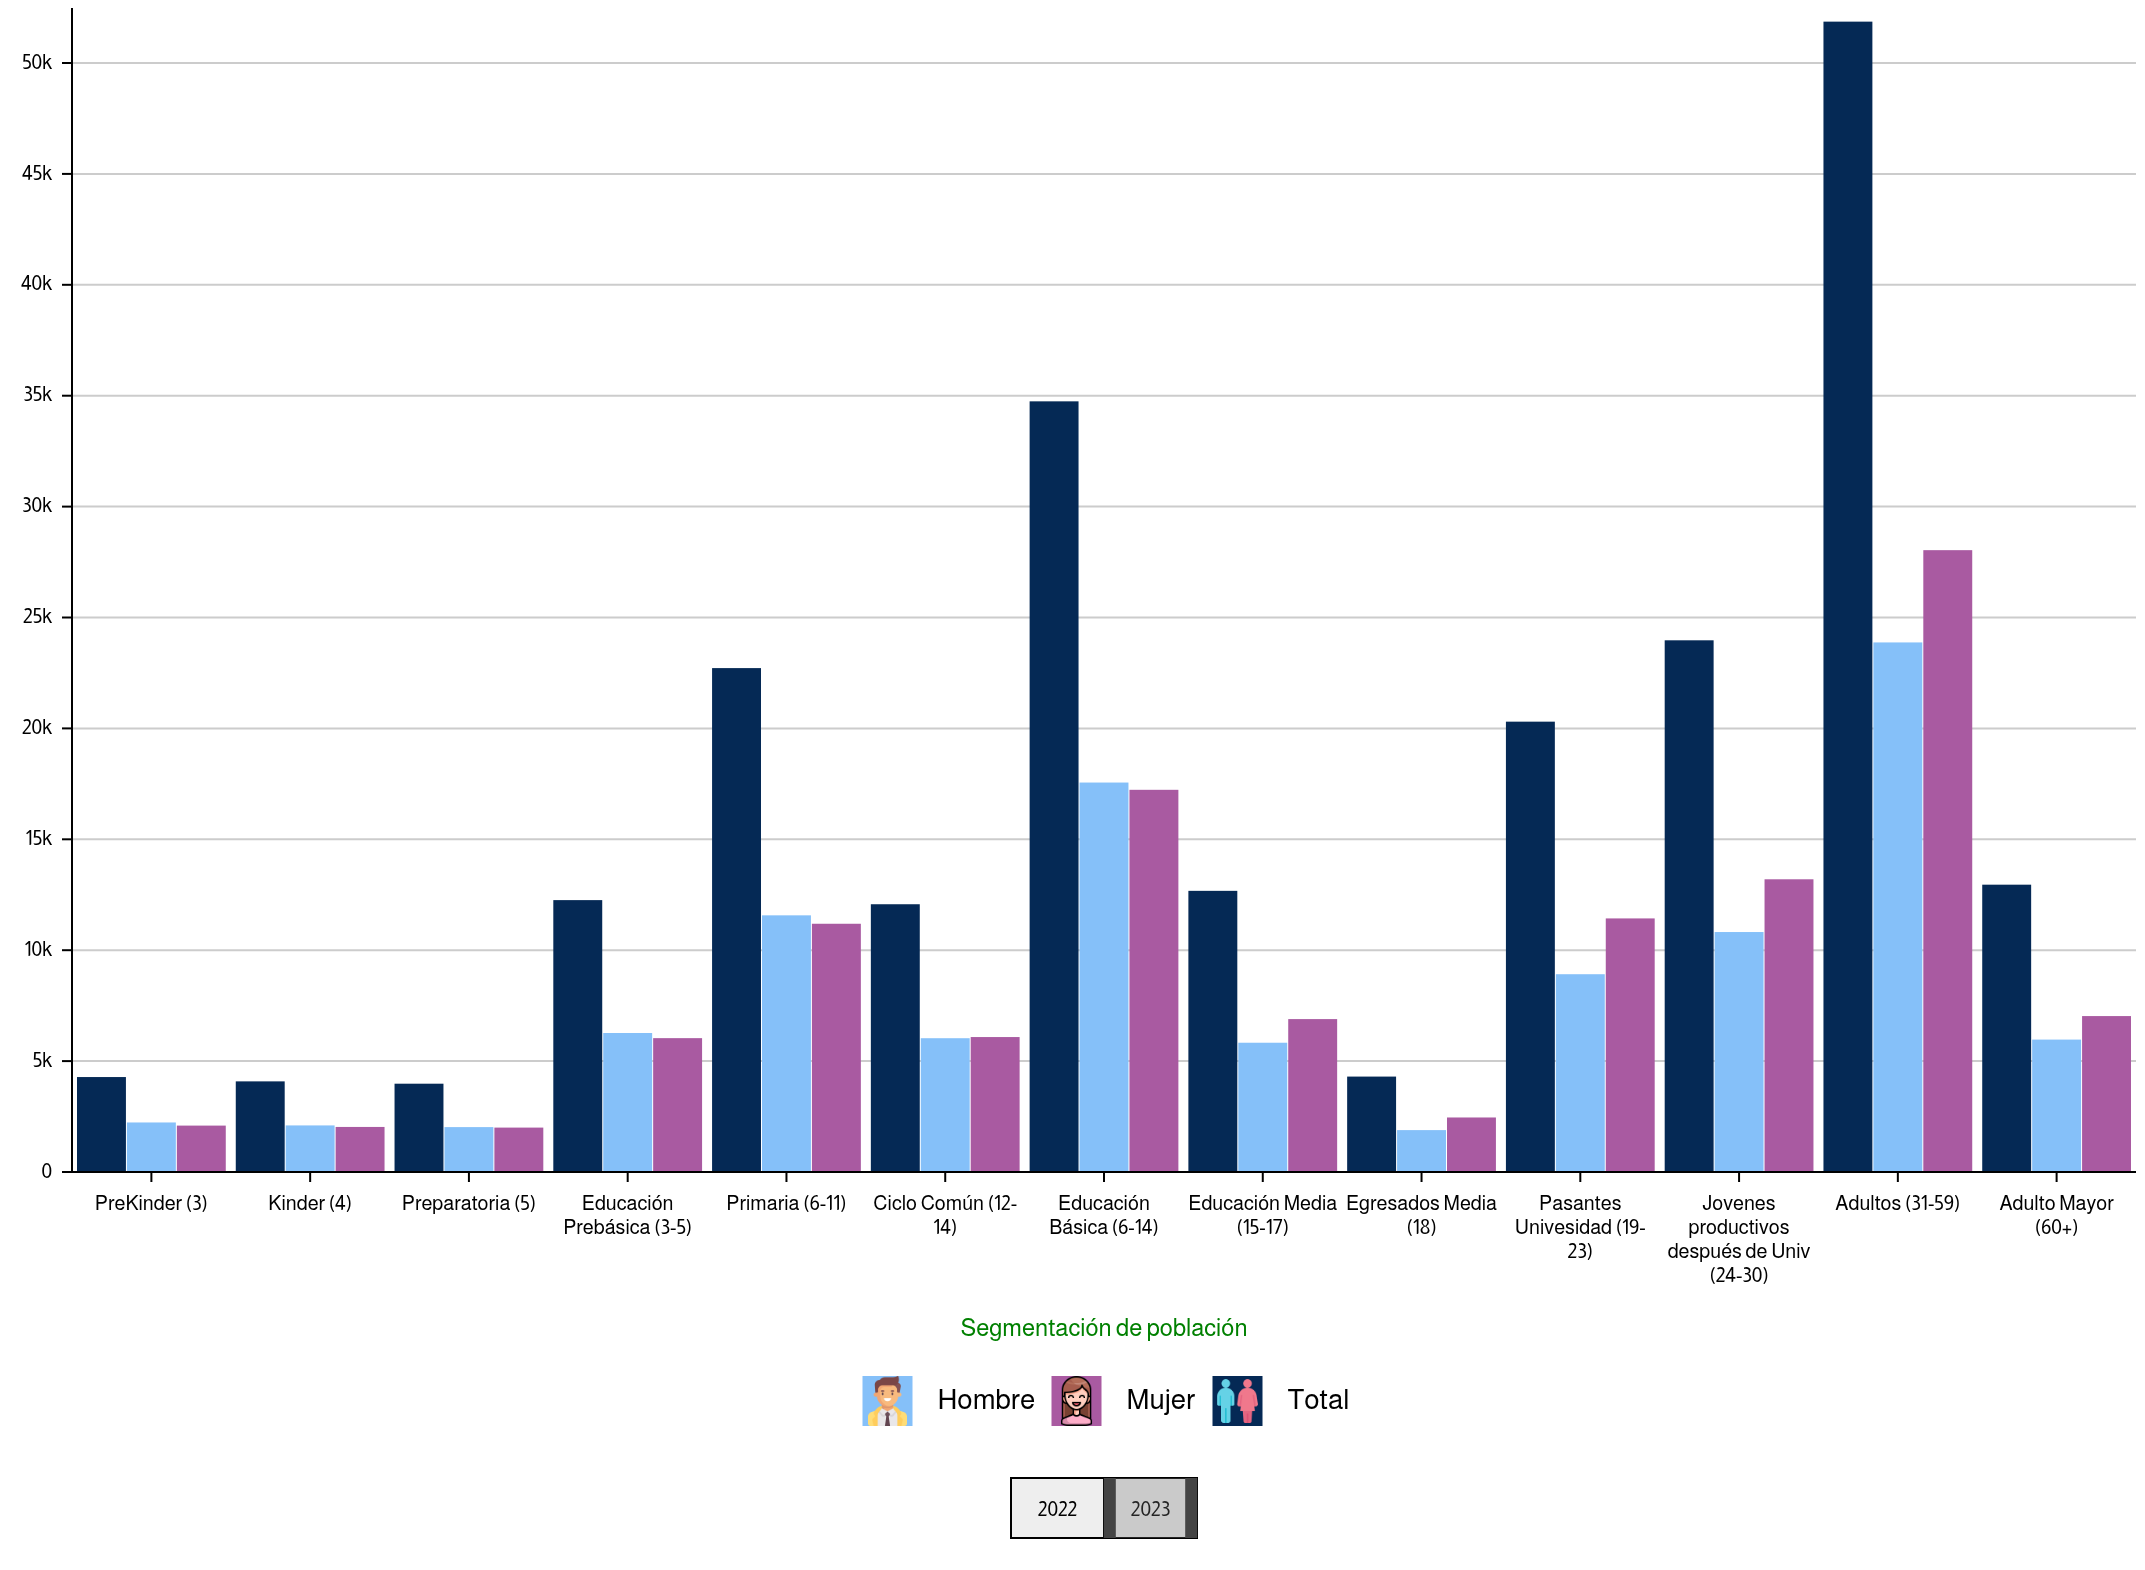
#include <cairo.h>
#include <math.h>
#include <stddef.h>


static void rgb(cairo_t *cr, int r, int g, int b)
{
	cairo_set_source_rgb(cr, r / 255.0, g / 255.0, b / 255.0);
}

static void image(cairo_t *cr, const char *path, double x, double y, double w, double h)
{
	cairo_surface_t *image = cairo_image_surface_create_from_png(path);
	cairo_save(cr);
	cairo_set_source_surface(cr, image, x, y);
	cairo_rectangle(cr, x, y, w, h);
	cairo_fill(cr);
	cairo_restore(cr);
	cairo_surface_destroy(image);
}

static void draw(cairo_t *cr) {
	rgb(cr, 255, 255, 255);
	cairo_paint(cr);
	image(cr, "image0.png", 21, 8, 2115, 1531);
}

int main(void) {
	cairo_surface_t *surface = cairo_image_surface_create(CAIRO_FORMAT_RGB24, 2145, 1570);
	cairo_t *cr = cairo_create(surface);
	cairo_font_options_t *options = cairo_font_options_create();
	cairo_font_options_set_hint_metrics(options, CAIRO_HINT_METRICS_OFF);
	cairo_font_options_set_hint_style(options, CAIRO_HINT_STYLE_NONE);
	cairo_set_font_options(cr, options);
	cairo_set_miter_limit(cr, 4);
	draw(cr);
	cairo_surface_write_to_png(surface, "render.png");
	cairo_font_options_destroy(options);
	cairo_destroy(cr);
	cairo_surface_destroy(surface);
	return 0;
}
